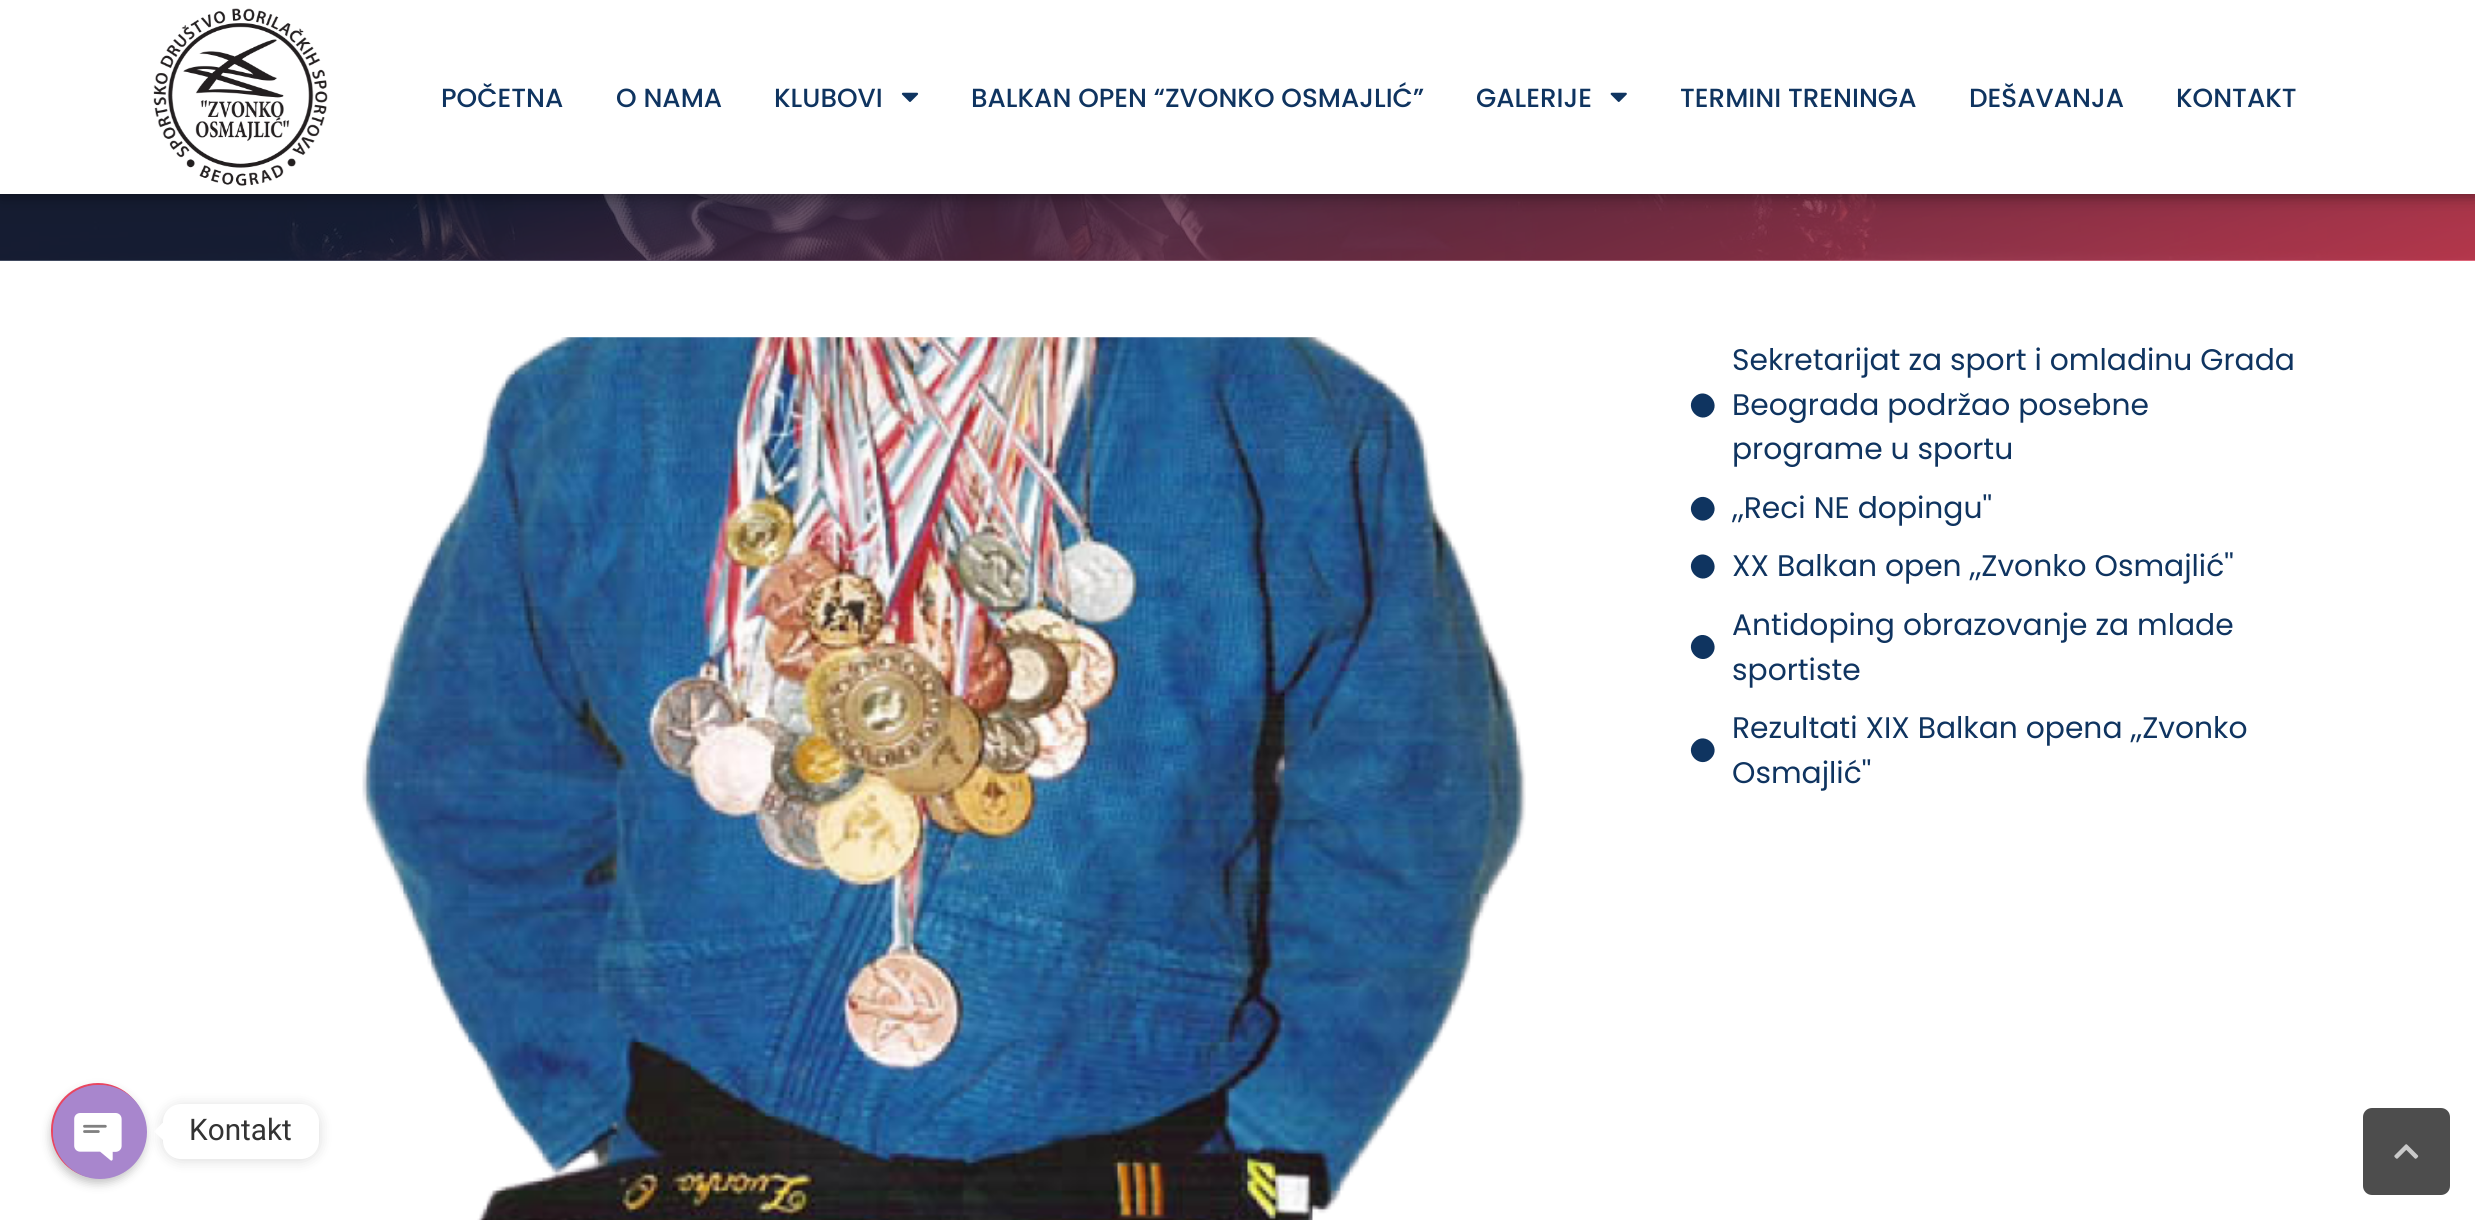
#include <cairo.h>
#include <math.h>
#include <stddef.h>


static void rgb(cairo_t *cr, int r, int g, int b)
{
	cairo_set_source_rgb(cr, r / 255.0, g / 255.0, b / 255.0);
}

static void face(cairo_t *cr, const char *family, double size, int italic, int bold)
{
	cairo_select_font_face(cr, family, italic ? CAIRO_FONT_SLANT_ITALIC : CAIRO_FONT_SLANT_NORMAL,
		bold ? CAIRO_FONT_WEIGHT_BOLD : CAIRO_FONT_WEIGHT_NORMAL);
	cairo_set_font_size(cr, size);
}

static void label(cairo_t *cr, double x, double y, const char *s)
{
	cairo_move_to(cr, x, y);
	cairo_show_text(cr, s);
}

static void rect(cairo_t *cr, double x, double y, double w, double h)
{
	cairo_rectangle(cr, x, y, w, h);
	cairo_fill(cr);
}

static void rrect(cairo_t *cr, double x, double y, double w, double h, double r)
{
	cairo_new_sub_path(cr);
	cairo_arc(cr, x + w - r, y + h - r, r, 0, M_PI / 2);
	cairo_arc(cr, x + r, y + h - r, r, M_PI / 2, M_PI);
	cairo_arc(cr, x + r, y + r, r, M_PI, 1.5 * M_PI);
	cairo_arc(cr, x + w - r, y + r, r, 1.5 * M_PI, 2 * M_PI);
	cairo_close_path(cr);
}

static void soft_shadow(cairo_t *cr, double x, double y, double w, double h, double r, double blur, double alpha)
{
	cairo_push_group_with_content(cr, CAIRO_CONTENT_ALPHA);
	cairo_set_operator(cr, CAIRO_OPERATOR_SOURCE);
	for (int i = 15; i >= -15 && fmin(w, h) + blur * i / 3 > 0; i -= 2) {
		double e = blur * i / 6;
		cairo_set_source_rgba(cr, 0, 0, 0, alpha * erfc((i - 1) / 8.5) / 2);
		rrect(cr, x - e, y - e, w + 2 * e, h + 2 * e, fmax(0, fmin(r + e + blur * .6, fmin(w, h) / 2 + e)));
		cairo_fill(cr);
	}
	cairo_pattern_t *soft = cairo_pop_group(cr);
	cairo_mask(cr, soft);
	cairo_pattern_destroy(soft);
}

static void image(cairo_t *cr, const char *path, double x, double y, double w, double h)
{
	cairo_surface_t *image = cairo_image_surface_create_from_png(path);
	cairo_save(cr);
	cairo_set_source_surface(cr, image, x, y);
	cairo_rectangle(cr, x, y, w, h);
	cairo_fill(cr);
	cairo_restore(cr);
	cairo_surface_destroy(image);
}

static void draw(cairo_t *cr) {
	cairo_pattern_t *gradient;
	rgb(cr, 255, 255, 255);
	cairo_paint(cr);
	image(cr, "image3.png", 0, 194, 2475, 67);
	gradient = cairo_pattern_create_linear(981, -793, 1495, 618);
	cairo_pattern_add_color_stop_rgba(gradient, 0.5, 0.086, 0.129, 0.243, 0.75);
	cairo_pattern_add_color_stop_rgba(gradient, 1, 0.914, 0.271, 0.376, 0.75);
	cairo_set_source(cr, gradient);
	cairo_pattern_destroy(gradient);
	rect(cr, 0, 194, 2475, 67);
	rgb(cr, 0, 0, 0);
	soft_shadow(cr, 0, 0, 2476, 194, 0, 9, 0.5);
	rgb(cr, 255, 255, 255);
	rect(cr, 0, 0, 2475, 194);
	image(cr, "image0.png", 153, 8, 175, 178);
	face(cr, "Poppins Medium", 26.25, 0, 0);
	rgb(cr, 15, 52, 96);
	label(cr, 441, 107, "POČETNA");
	label(cr, 616, 107, "O NAMA");
	label(cr, 774, 107, "KLUBOVI");
	image(cr, "image1.png", 901, 92, 18, 10);
	label(cr, 971, 107, "BALKAN OPEN “ZVONKO OSMAJLIĆ”");
	label(cr, 1476, 107, "GALERIJE");
	image(cr, "image2.png", 1610, 92, 17, 10);
	label(cr, 1680, 107, "TERMINI TRENINGA");
	label(cr, 1969, 107, "DEŠAVANJA");
	label(cr, 2176, 107, "KONTAKT");
	image(cr, "image4.png", 362, 337, 1164, 883);
	cairo_new_path(cr);
	cairo_move_to(cr, 1694.5, 397);
	cairo_curve_to(cr, 1705.5, 386, 1722, 403, 1711, 414);
	cairo_curve_to(cr, 1700, 425, 1683.5, 408, 1694.5, 397);
	cairo_close_path(cr);
	cairo_fill(cr);
	face(cr, "Poppins", 29.75, 0, 0);
	label(cr, 1732, 370, "Sekretarijat za sport i omladinu Grada");
	label(cr, 1732, 415, "Beograda podržao posebne");
	label(cr, 1732, 459, "programe u sportu");
	cairo_new_path(cr);
	cairo_move_to(cr, 1694.5, 500.5);
	cairo_curve_to(cr, 1705.5, 489.5, 1722, 506, 1711, 517);
	cairo_curve_to(cr, 1700, 528, 1683.5, 511.5, 1694.5, 500.5);
	cairo_close_path(cr);
	cairo_fill(cr);
	label(cr, 1732, 518, ",,Reci NE dopingu''");
	cairo_new_path(cr);
	cairo_move_to(cr, 1694.5, 558);
	cairo_curve_to(cr, 1705.5, 547, 1722, 564, 1711, 575);
	cairo_curve_to(cr, 1700, 586, 1683.5, 569, 1694.5, 558);
	cairo_close_path(cr);
	cairo_fill(cr);
	label(cr, 1732, 576, "XX Balkan open ,,Zvonko Osmajlić''");
	cairo_new_path(cr);
	cairo_move_to(cr, 1694.5, 638.5);
	cairo_curve_to(cr, 1705.5, 627.5, 1722, 644.5, 1711, 655.5);
	cairo_curve_to(cr, 1700, 666.5, 1683.5, 649.5, 1694.5, 638.5);
	cairo_close_path(cr);
	cairo_fill(cr);
	label(cr, 1732, 635, "Antidoping obrazovanje za mlade");
	label(cr, 1732, 680, "sportiste");
	cairo_new_path(cr);
	cairo_move_to(cr, 1694.5, 742);
	cairo_curve_to(cr, 1705.5, 731, 1722, 747.5, 1711, 758.5);
	cairo_curve_to(cr, 1700, 769.5, 1683.5, 753, 1694.5, 742);
	cairo_close_path(cr);
	cairo_fill(cr);
	label(cr, 1732, 738, "Rezultati XIX Balkan opena ,,Zvonko");
	label(cr, 1732, 783, "Osmajlić''");
	rgb(cr, 0, 0, 0);
	soft_shadow(cr, 163, 1106, 156, 54, 18, 7, 0.15);
	rgb(cr, 255, 255, 255);
	cairo_new_path(cr);
	cairo_move_to(cr, 163, 1122.5);
	cairo_line_to(cr, 163, 1140);
	cairo_line_to(cr, 154, 1131.5);
	cairo_close_path(cr);
	cairo_fill(cr);
	rgb(cr, 0, 0, 0);
	soft_shadow(cr, 51, 1089, 94, 94, 47, 5, 0.25);
	rgb(cr, 168, 134, 205);
	rrect(cr, 52, 1084, 92, 93, 46);
	cairo_fill_preserve(cr);
	rgb(cr, 233, 69, 96);
	cairo_stroke(cr);
	image(cr, "image5.png", 53, 1085, 94, 94);
	rgb(cr, 255, 255, 255);
	rrect(cr, 163, 1104, 156, 55, 18);
	cairo_fill(cr);
	face(cr, "Roboto", 29.75, 0, 0);
	rgb(cr, 51, 51, 51);
	label(cr, 189, 1140, "Kontakt");
	rgb(cr, 77, 77, 77);
	rrect(cr, 2363, 1108, 87, 87, 9);
	cairo_fill(cr);
	image(cr, "image6.png", 2394, 1144, 25, 15);
}

int main(void) {
	cairo_surface_t *surface = cairo_image_surface_create(CAIRO_FORMAT_RGB24, 2475, 1220);
	cairo_t *cr = cairo_create(surface);
	cairo_font_options_t *options = cairo_font_options_create();
	cairo_font_options_set_hint_metrics(options, CAIRO_HINT_METRICS_OFF);
	cairo_font_options_set_hint_style(options, CAIRO_HINT_STYLE_NONE);
	cairo_set_font_options(cr, options);
	cairo_set_miter_limit(cr, 4);
	draw(cr);
	cairo_surface_write_to_png(surface, "render.png");
	cairo_font_options_destroy(options);
	cairo_destroy(cr);
	cairo_surface_destroy(surface);
	return 0;
}
